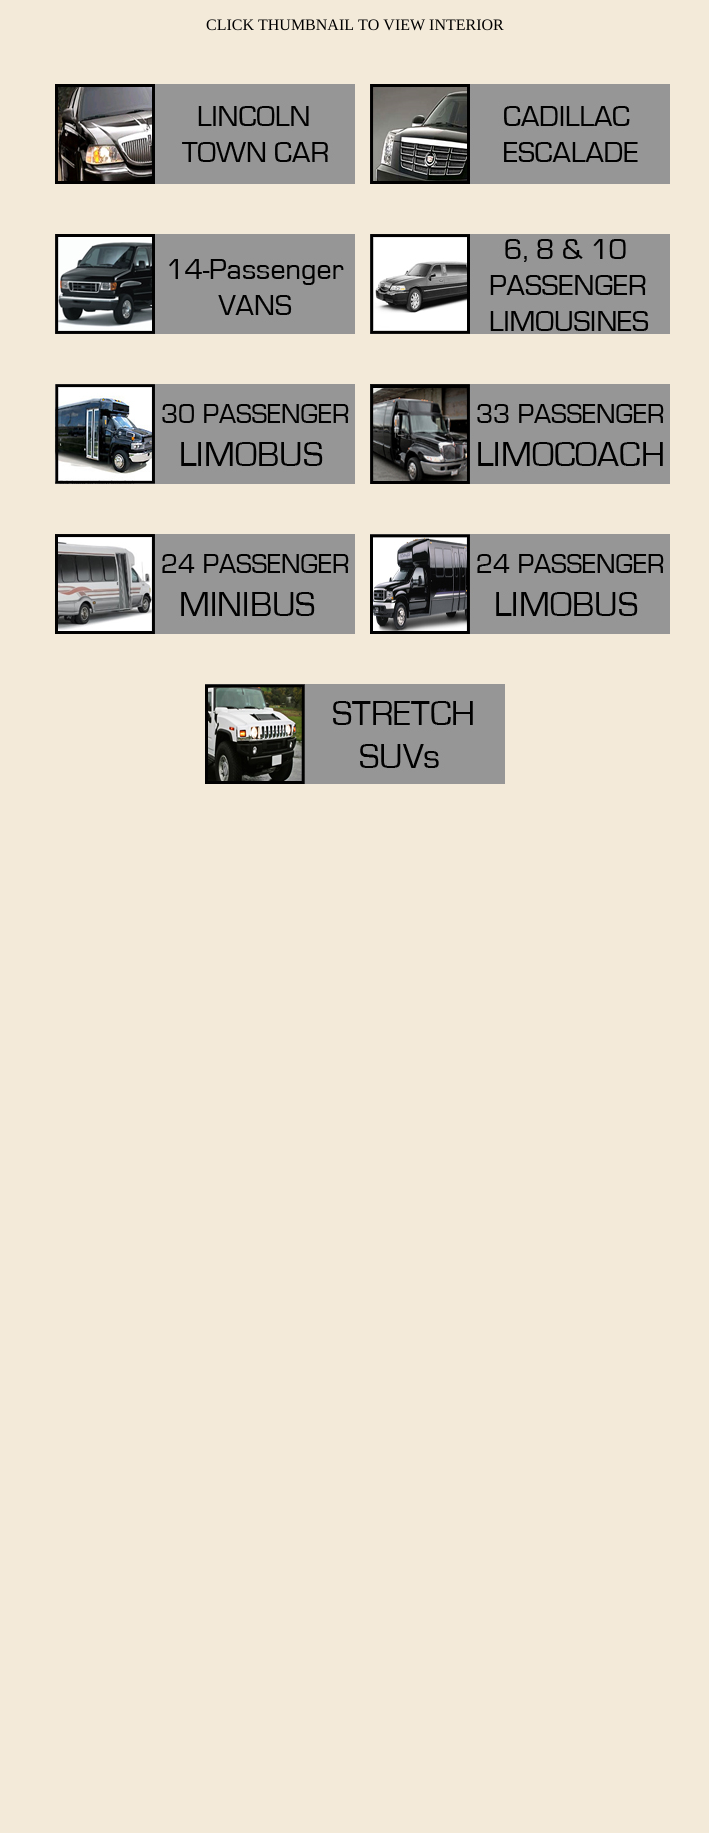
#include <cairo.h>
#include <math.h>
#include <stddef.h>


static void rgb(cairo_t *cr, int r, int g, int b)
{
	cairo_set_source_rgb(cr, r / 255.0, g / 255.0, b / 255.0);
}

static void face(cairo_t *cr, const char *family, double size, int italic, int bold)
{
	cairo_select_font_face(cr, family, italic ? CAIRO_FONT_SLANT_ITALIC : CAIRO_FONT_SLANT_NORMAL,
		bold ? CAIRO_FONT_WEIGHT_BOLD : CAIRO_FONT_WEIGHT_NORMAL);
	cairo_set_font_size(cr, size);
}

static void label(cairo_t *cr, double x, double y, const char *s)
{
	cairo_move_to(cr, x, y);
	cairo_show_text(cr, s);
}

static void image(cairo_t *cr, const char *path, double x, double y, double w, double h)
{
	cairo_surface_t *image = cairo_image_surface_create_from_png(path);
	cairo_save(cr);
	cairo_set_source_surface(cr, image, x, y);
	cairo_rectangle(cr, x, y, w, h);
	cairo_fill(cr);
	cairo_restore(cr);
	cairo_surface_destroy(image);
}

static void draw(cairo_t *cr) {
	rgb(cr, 243, 234, 217);
	cairo_paint(cr);
	face(cr, "Liberation Serif", 16, 0, 0);
	rgb(cr, 0, 0, 0);
	label(cr, 206, 30, "CLICK THUMBNAIL TO VIEW INTERIOR");
	image(cr, "image0.png", 55, 84, 300, 100);
	image(cr, "image1.png", 370, 84, 300, 100);
	image(cr, "image2.png", 55, 234, 300, 100);
	image(cr, "image3.png", 370, 234, 300, 100);
	image(cr, "image4.png", 55, 384, 300, 100);
	image(cr, "image5.png", 370, 384, 300, 100);
	image(cr, "image6.png", 55, 534, 300, 100);
	image(cr, "image7.png", 370, 534, 300, 100);
	image(cr, "image8.png", 205, 684, 300, 100);
}

int main(void) {
	cairo_surface_t *surface = cairo_image_surface_create(CAIRO_FORMAT_RGB24, 709, 1833);
	cairo_t *cr = cairo_create(surface);
	cairo_font_options_t *options = cairo_font_options_create();
	cairo_font_options_set_hint_metrics(options, CAIRO_HINT_METRICS_OFF);
	cairo_font_options_set_hint_style(options, CAIRO_HINT_STYLE_NONE);
	cairo_set_font_options(cr, options);
	cairo_set_miter_limit(cr, 4);
	draw(cr);
	cairo_surface_write_to_png(surface, "render.png");
	cairo_font_options_destroy(options);
	cairo_destroy(cr);
	cairo_surface_destroy(surface);
	return 0;
}
